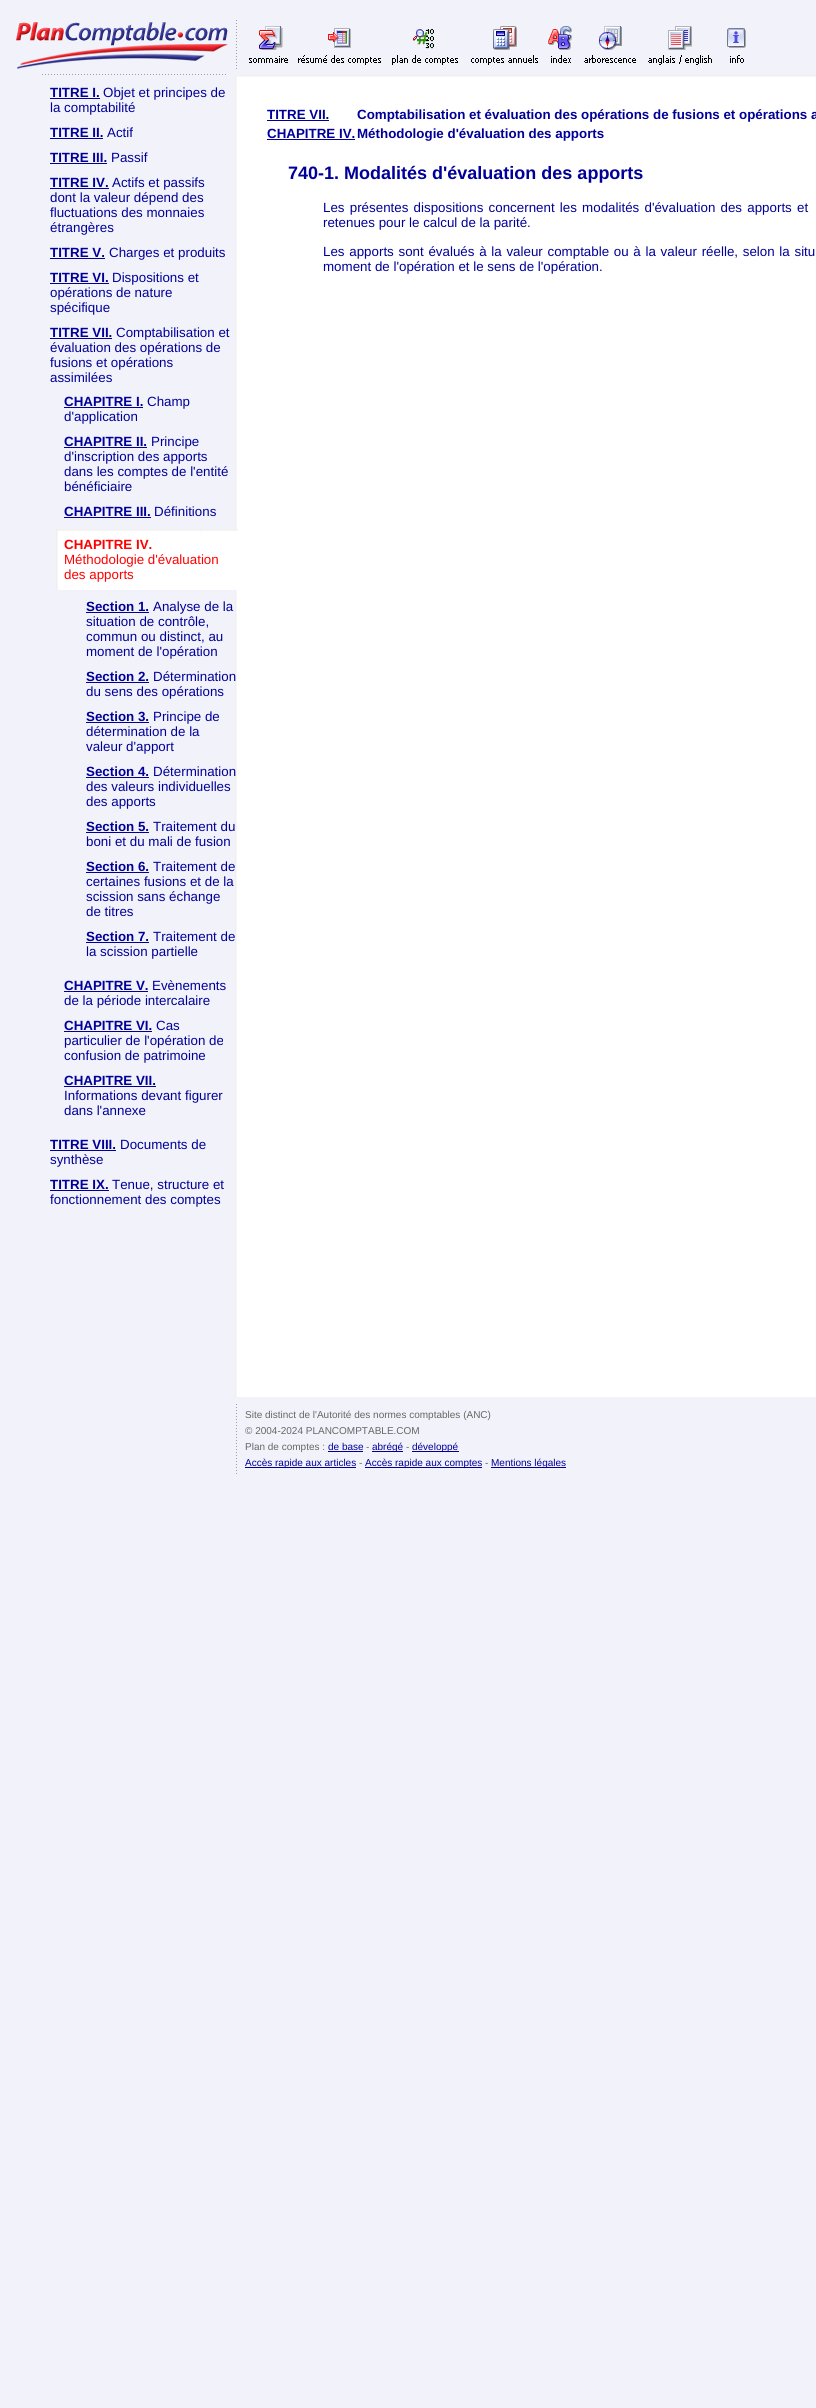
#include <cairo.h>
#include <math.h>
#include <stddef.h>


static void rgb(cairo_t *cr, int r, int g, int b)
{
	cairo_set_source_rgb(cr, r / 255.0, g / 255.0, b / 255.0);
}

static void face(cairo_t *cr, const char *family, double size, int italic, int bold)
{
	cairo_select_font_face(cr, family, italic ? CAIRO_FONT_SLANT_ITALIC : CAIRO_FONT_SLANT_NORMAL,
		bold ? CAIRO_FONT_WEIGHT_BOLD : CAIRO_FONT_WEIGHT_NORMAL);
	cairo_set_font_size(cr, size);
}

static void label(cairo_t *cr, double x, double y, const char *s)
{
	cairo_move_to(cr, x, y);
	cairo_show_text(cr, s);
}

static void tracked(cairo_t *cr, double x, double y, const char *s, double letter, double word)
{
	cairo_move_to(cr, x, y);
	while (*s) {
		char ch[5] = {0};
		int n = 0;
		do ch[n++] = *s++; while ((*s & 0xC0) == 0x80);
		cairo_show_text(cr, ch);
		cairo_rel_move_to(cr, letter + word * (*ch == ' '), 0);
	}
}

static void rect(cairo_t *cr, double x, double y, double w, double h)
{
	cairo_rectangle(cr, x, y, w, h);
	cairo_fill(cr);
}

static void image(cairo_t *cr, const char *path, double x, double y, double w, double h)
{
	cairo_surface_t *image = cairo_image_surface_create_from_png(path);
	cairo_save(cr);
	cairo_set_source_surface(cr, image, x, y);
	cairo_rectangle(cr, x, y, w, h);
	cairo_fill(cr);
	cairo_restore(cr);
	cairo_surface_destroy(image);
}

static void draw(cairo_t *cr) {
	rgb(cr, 242, 242, 250);
	cairo_paint(cr);
	rgb(cr, 255, 255, 255);
	rect(cr, 237, 77, 579, 1320);
	image(cr, "image0.png", 237, 75, 579, 2);
	image(cr, "image1.png", 16, 22, 212, 53);
	image(cr, "image2.png", 236, 20, 1, 49);
	image(cr, "image3.png", 249, 26, 39, 37);
	image(cr, "image4.png", 298, 28, 83, 37);
	image(cr, "image5.png", 392, 29, 66, 36);
	image(cr, "image6.png", 471, 26, 67, 39);
	image(cr, "image7.png", 548, 26, 24, 37);
	image(cr, "image8.png", 584, 26, 52, 37);
	image(cr, "image9.png", 648, 26, 64, 39);
	image(cr, "image10.png", 727, 28, 19, 35);
	face(cr, "Liberation Sans", 13.35, 0, 1);
	rgb(cr, 0, 0, 153);
	label(cr, 50, 97, "TITRE I.");
	rect(cr, 50, 98, 50, 1);
	face(cr, "Liberation Sans", 13.35, 0, 0);
	label(cr, 103, 97, "Objet et principes de");
	label(cr, 50, 112, "la comptabilité");
	face(cr, "Liberation Sans", 13.35, 0, 1);
	label(cr, 50, 137, "TITRE II.");
	rect(cr, 50, 138, 53, 1);
	face(cr, "Liberation Sans", 13.35, 0, 0);
	label(cr, 107, 137, "Actif");
	face(cr, "Liberation Sans", 13.35, 0, 1);
	label(cr, 50, 162, "TITRE III.");
	rect(cr, 50, 163, 57, 1);
	face(cr, "Liberation Sans", 13.35, 0, 0);
	label(cr, 111, 162, "Passif");
	face(cr, "Liberation Sans", 13.35, 0, 1);
	label(cr, 50, 187, "TITRE IV.");
	rect(cr, 50, 188, 59, 1);
	face(cr, "Liberation Sans", 13.35, 0, 0);
	label(cr, 112, 187, "Actifs et passifs");
	label(cr, 50, 202, "dont la valeur dépend des");
	label(cr, 50, 217, "fluctuations des monnaies");
	label(cr, 50, 232, "étrangères");
	face(cr, "Liberation Sans", 13.35, 0, 1);
	label(cr, 50, 257, "TITRE V.");
	rect(cr, 50, 258, 55, 1);
	face(cr, "Liberation Sans", 13.35, 0, 0);
	label(cr, 109, 257, "Charges et produits");
	face(cr, "Liberation Sans", 13.35, 0, 1);
	label(cr, 50, 282, "TITRE VI.");
	rect(cr, 50, 283, 59, 1);
	face(cr, "Liberation Sans", 13.35, 0, 0);
	label(cr, 112, 282, "Dispositions et");
	label(cr, 50, 297, "opérations de nature");
	label(cr, 50, 312, "spécifique");
	face(cr, "Liberation Sans", 13.35, 0, 1);
	label(cr, 50, 337, "TITRE VII.");
	rect(cr, 50, 338, 62, 1);
	face(cr, "Liberation Sans", 13.35, 0, 0);
	label(cr, 116, 337, "Comptabilisation et");
	label(cr, 50, 352, "évaluation des opérations de");
	label(cr, 50, 367, "fusions et opérations");
	label(cr, 50, 382, "assimilées");
	face(cr, "Liberation Sans", 13.35, 0, 1);
	label(cr, 64, 406, "CHAPITRE I.");
	rect(cr, 64, 407, 79, 1);
	face(cr, "Liberation Sans", 13.35, 0, 0);
	label(cr, 147, 406, "Champ");
	label(cr, 64, 421, "d'application");
	face(cr, "Liberation Sans", 13.35, 0, 1);
	label(cr, 64, 446, "CHAPITRE II.");
	rect(cr, 64, 447, 83, 1);
	face(cr, "Liberation Sans", 13.35, 0, 0);
	label(cr, 151, 446, "Principe");
	label(cr, 64, 461, "d'inscription des apports");
	label(cr, 64, 476, "dans les comptes de l'entité");
	label(cr, 64, 491, "bénéficiaire");
	face(cr, "Liberation Sans", 13.35, 0, 1);
	label(cr, 64, 516, "CHAPITRE III.");
	rect(cr, 64, 517, 87, 1);
	face(cr, "Liberation Sans", 13.35, 0, 0);
	label(cr, 154, 516, "Définitions");
	image(cr, "image12.png", 235, 75, 2, 1307);
	image(cr, "image11.png", 56, 529, 182, 61);
	face(cr, "Liberation Sans", 13.35, 0, 1);
	rgb(cr, 255, 0, 0);
	label(cr, 64, 549, "CHAPITRE IV.");
	face(cr, "Liberation Sans", 13.35, 0, 0);
	label(cr, 64, 564, "Méthodologie d'évaluation");
	label(cr, 64, 579, "des apports");
	face(cr, "Liberation Sans", 13.35, 0, 1);
	rgb(cr, 0, 0, 153);
	label(cr, 86, 611, "Section 1.");
	rect(cr, 86, 612, 63, 1);
	face(cr, "Liberation Sans", 13.35, 0, 0);
	label(cr, 153, 611, "Analyse de la");
	label(cr, 86, 626, "situation de contrôle,");
	label(cr, 86, 641, "commun ou distinct, au");
	label(cr, 86, 656, "moment de l'opération");
	face(cr, "Liberation Sans", 13.35, 0, 1);
	label(cr, 86, 681, "Section 2.");
	rect(cr, 86, 682, 63, 1);
	face(cr, "Liberation Sans", 13.35, 0, 0);
	label(cr, 153, 681, "Détermination");
	label(cr, 86, 696, "du sens des opérations");
	face(cr, "Liberation Sans", 13.35, 0, 1);
	label(cr, 86, 721, "Section 3.");
	rect(cr, 86, 722, 63, 1);
	face(cr, "Liberation Sans", 13.35, 0, 0);
	label(cr, 153, 721, "Principe de");
	label(cr, 86, 736, "détermination de la");
	label(cr, 86, 751, "valeur d'apport");
	face(cr, "Liberation Sans", 13.35, 0, 1);
	label(cr, 86, 776, "Section 4.");
	rect(cr, 86, 777, 63, 1);
	face(cr, "Liberation Sans", 13.35, 0, 0);
	label(cr, 153, 776, "Détermination");
	label(cr, 86, 791, "des valeurs individuelles");
	label(cr, 86, 806, "des apports");
	face(cr, "Liberation Sans", 13.35, 0, 1);
	label(cr, 86, 831, "Section 5.");
	rect(cr, 86, 832, 63, 1);
	face(cr, "Liberation Sans", 13.35, 0, 0);
	label(cr, 153, 831, "Traitement du");
	label(cr, 86, 846, "boni et du mali de fusion");
	face(cr, "Liberation Sans", 13.35, 0, 1);
	label(cr, 86, 871, "Section 6.");
	rect(cr, 86, 872, 63, 1);
	face(cr, "Liberation Sans", 13.35, 0, 0);
	label(cr, 153, 871, "Traitement de");
	label(cr, 86, 886, "certaines fusions et de la");
	label(cr, 86, 901, "scission sans échange");
	label(cr, 86, 916, "de titres");
	face(cr, "Liberation Sans", 13.35, 0, 1);
	label(cr, 86, 941, "Section 7.");
	rect(cr, 86, 942, 63, 1);
	face(cr, "Liberation Sans", 13.35, 0, 0);
	label(cr, 153, 941, "Traitement de");
	label(cr, 86, 956, "la scission partielle");
	face(cr, "Liberation Sans", 13.35, 0, 1);
	label(cr, 64, 990, "CHAPITRE V.");
	rect(cr, 64, 991, 84, 1);
	face(cr, "Liberation Sans", 13.35, 0, 0);
	label(cr, 152, 990, "Evènements");
	label(cr, 64, 1005, "de la période intercalaire");
	face(cr, "Liberation Sans", 13.35, 0, 1);
	label(cr, 64, 1030, "CHAPITRE VI.");
	rect(cr, 64, 1031, 88, 1);
	face(cr, "Liberation Sans", 13.35, 0, 0);
	label(cr, 156, 1030, "Cas");
	label(cr, 64, 1045, "particulier de l'opération de");
	label(cr, 64, 1060, "confusion de patrimoine");
	face(cr, "Liberation Sans", 13.35, 0, 1);
	label(cr, 64, 1085, "CHAPITRE VII.");
	rect(cr, 64, 1086, 92, 1);
	face(cr, "Liberation Sans", 13.35, 0, 0);
	label(cr, 64, 1100, "Informations devant figurer");
	label(cr, 64, 1115, "dans l'annexe");
	face(cr, "Liberation Sans", 13.35, 0, 1);
	label(cr, 50, 1149, "TITRE VIII.");
	rect(cr, 50, 1150, 66, 1);
	face(cr, "Liberation Sans", 13.35, 0, 0);
	label(cr, 120, 1149, "Documents de");
	label(cr, 50, 1164, "synthèse");
	face(cr, "Liberation Sans", 13.35, 0, 1);
	label(cr, 50, 1189, "TITRE IX.");
	rect(cr, 50, 1190, 59, 1);
	face(cr, "Liberation Sans", 13.35, 0, 0);
	label(cr, 112, 1189, "Tenue, structure et");
	label(cr, 50, 1204, "fonctionnement des comptes");
	face(cr, "Liberation Sans", 13.35, 0, 1);
	label(cr, 267, 119, "TITRE VII.");
	rect(cr, 267, 120, 62, 1);
	label(cr, 357, 119, "Comptabilisation et évaluation des opérations de fusions et opérations a");
	label(cr, 267, 138, "CHAPITRE IV.");
	rect(cr, 267, 139, 88, 1);
	label(cr, 357, 138, "Méthodologie d'évaluation des apports");
	face(cr, "Liberation Sans", 18, 0, 1);
	label(cr, 288, 179, "740-1. Modalités d'évaluation des apports");
	face(cr, "Liberation Sans", 13.35, 0, 0);
	tracked(cr, 323, 212, "Les présentes dispositions concernent les modalités d'évaluation des apports et", 0, 1.5);
	label(cr, 323, 227, "retenues pour le calcul de la parité.");
	tracked(cr, 323, 256, "Les apports sont évalués à la valeur comptable ou à la valeur réelle, selon la situ", 0, 1);
	label(cr, 323, 271, "moment de l'opération et le sens de l'opération.");
	image(cr, "image13.png", 235, 1382, 2, 15);
	image(cr, "image14.png", 236, 1404, 1, 70);
	face(cr, "Liberation Sans", 10, 0, 0);
	rgb(cr, 102, 102, 102);
	label(cr, 245, 1418, "Site distinct de l'Autorité des normes comptables (ANC)");
	label(cr, 245, 1434, "© 2004-2024 PLANCOMPTABLE.COM");
	label(cr, 245, 1450, "Plan de comptes :");
	rgb(cr, 0, 0, 153);
	label(cr, 328, 1450, "de base");
	rect(cr, 328, 1451, 35, 1);
	rgb(cr, 102, 102, 102);
	label(cr, 366, 1450, "-");
	rgb(cr, 0, 0, 153);
	rect(cr, 372, 1451, 31, 1);
	label(cr, 372, 1450, "abrégé");
	rgb(cr, 102, 102, 102);
	label(cr, 406, 1450, "-");
	rgb(cr, 0, 0, 153);
	rect(cr, 412, 1451, 47, 1);
	label(cr, 412, 1450, "développé");
	rect(cr, 245, 1467, 111, 1);
	label(cr, 245, 1466, "Accès rapide aux articles");
	rgb(cr, 102, 102, 102);
	label(cr, 359, 1466, "-");
	rgb(cr, 0, 0, 153);
	rect(cr, 365, 1467, 117, 1);
	label(cr, 365, 1466, "Accès rapide aux comptes");
	rgb(cr, 102, 102, 102);
	label(cr, 485, 1466, "-");
	rgb(cr, 0, 0, 153);
	rect(cr, 491, 1467, 75, 1);
	label(cr, 491, 1466, "Mentions légales");
}

int main(void) {
	cairo_surface_t *surface = cairo_image_surface_create(CAIRO_FORMAT_RGB24, 816, 2408);
	cairo_t *cr = cairo_create(surface);
	cairo_font_options_t *options = cairo_font_options_create();
	cairo_font_options_set_hint_metrics(options, CAIRO_HINT_METRICS_OFF);
	cairo_font_options_set_hint_style(options, CAIRO_HINT_STYLE_NONE);
	cairo_set_font_options(cr, options);
	cairo_set_miter_limit(cr, 4);
	draw(cr);
	cairo_surface_write_to_png(surface, "render.png");
	cairo_font_options_destroy(options);
	cairo_destroy(cr);
	cairo_surface_destroy(surface);
	return 0;
}
